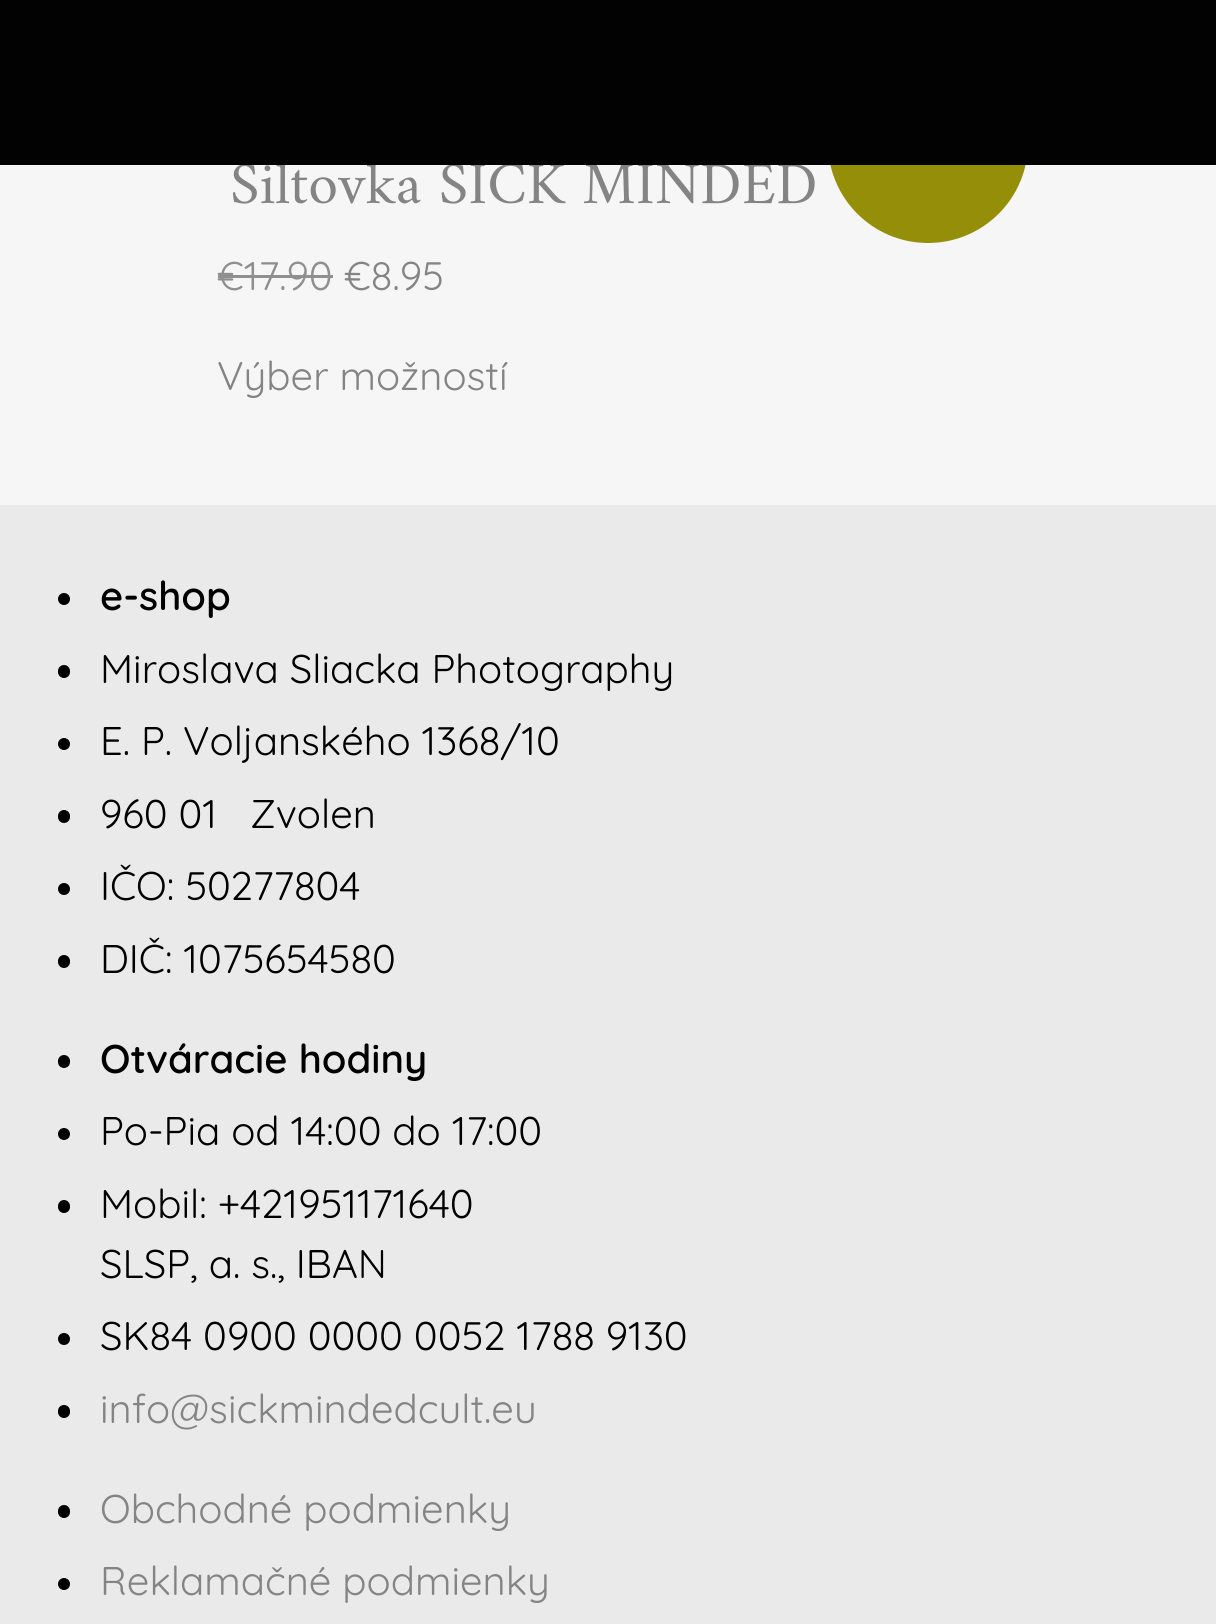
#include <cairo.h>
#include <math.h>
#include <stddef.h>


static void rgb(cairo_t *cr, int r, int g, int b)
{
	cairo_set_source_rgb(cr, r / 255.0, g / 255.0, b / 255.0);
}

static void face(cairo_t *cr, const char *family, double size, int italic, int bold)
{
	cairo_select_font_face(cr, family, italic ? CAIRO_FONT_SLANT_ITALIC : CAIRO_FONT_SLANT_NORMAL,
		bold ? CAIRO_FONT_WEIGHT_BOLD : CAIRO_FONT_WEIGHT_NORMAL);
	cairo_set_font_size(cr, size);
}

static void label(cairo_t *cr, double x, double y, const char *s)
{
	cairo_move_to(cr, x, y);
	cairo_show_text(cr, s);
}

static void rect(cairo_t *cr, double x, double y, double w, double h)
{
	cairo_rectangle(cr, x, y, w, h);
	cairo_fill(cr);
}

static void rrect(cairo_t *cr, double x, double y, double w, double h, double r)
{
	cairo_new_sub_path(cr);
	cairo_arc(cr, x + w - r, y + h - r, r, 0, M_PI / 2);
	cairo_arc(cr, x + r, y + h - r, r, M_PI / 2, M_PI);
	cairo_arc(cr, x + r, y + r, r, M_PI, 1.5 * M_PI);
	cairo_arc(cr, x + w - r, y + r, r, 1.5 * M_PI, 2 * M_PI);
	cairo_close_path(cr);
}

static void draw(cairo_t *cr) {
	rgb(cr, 246, 246, 246);
	cairo_paint(cr);
	face(cr, "Amiri", 60, 0, 0);
	rgb(cr, 132, 132, 132);
	label(cr, 230, 203, "Šiltovka SICK MINDED");
	rgb(cr, 149, 142, 9);
	rrect(cr, 828, 40, 200, 203, 100);
	cairo_fill(cr);
	rgb(cr, 2, 2, 2);
	rect(cr, 0, 0, 1216, 165);
	face(cr, "Quicksand", 40, 0, 0);
	rgb(cr, 143, 143, 143);
	label(cr, 217, 290, "€17.90");
	rect(cr, 218, 275, 115, 3);
	rgb(cr, 132, 132, 132);
	label(cr, 344, 290, "€8.95");
	label(cr, 217, 390, "Výber možností");
	rgb(cr, 234, 234, 234);
	rect(cr, 0, 505, 1216, 1119);
	rgb(cr, 0, 0, 0);
	cairo_new_path(cr);
	cairo_arc(cr, 64, 599, 6, 0, 2 * M_PI);
	cairo_fill(cr);
	face(cr, "Quicksand SemiBold", 40, 0, 0);
	label(cr, 100, 610, "e-shop");
	rrect(cr, 58, 665, 12, 13, 6);
	cairo_fill(cr);
	face(cr, "Quicksand", 40, 0, 0);
	label(cr, 100, 683, "Miroslava Sliacka Photography");
	cairo_new_path(cr);
	cairo_arc(cr, 64, 744, 6, 0, 2 * M_PI);
	cairo_fill(cr);
	label(cr, 100, 755, "E. P. Voljanského 1368/10");
	rrect(cr, 58, 810, 12, 13, 6);
	cairo_fill(cr);
	label(cr, 100, 828, "960 01   Zvolen");
	cairo_new_path(cr);
	cairo_arc(cr, 64, 889, 6, 0, 2 * M_PI);
	cairo_fill(cr);
	label(cr, 100, 900, "IČO: 50277804");
	rrect(cr, 58, 955, 12, 13, 6);
	cairo_fill(cr);
	label(cr, 100, 973, "DIČ: 1075654580");
	rrect(cr, 58, 1055, 12, 13, 6);
	cairo_fill(cr);
	face(cr, "Quicksand SemiBold", 40, 0, 0);
	label(cr, 100, 1073, "Otváracie hodiny");
	cairo_new_path(cr);
	cairo_arc(cr, 64, 1134, 6, 0, 2 * M_PI);
	cairo_fill(cr);
	face(cr, "Quicksand", 40, 0, 0);
	label(cr, 100, 1145, "Po-Pia od 14:00 do 17:00");
	rrect(cr, 58, 1200, 12, 13, 6);
	cairo_fill(cr);
	label(cr, 100, 1218, "Mobil: +421951171640");
	label(cr, 100, 1278, "SLSP, a. s., IBAN");
	cairo_new_path(cr);
	cairo_arc(cr, 64, 1339, 6, 0, 2 * M_PI);
	cairo_fill(cr);
	label(cr, 100, 1350, "SK84 0900 0000 0052 1788 9130");
	rrect(cr, 58, 1405, 12, 13, 6);
	cairo_fill(cr);
	rgb(cr, 132, 132, 132);
	label(cr, 100, 1423, "info@sickmindedcult.eu");
	rgb(cr, 0, 0, 0);
	rrect(cr, 58, 1505, 12, 13, 6);
	cairo_fill(cr);
	rgb(cr, 132, 132, 132);
	label(cr, 100, 1523, "Obchodné podmienky");
	rgb(cr, 0, 0, 0);
	cairo_new_path(cr);
	cairo_arc(cr, 64, 1584, 6, 0, 2 * M_PI);
	cairo_fill(cr);
	rgb(cr, 132, 132, 132);
	label(cr, 100, 1595, "Reklamačné podmienky");
}

int main(void) {
	cairo_surface_t *surface = cairo_image_surface_create(CAIRO_FORMAT_RGB24, 1216, 1624);
	cairo_t *cr = cairo_create(surface);
	cairo_font_options_t *options = cairo_font_options_create();
	cairo_font_options_set_hint_metrics(options, CAIRO_HINT_METRICS_OFF);
	cairo_font_options_set_hint_style(options, CAIRO_HINT_STYLE_NONE);
	cairo_set_font_options(cr, options);
	cairo_set_miter_limit(cr, 4);
	draw(cr);
	cairo_surface_write_to_png(surface, "render.png");
	cairo_font_options_destroy(options);
	cairo_destroy(cr);
	cairo_surface_destroy(surface);
	return 0;
}
